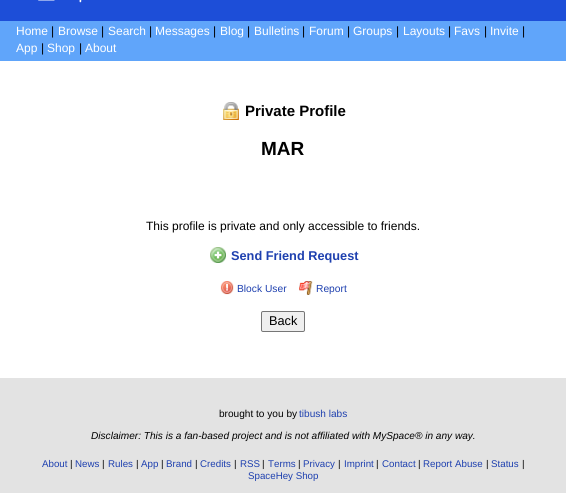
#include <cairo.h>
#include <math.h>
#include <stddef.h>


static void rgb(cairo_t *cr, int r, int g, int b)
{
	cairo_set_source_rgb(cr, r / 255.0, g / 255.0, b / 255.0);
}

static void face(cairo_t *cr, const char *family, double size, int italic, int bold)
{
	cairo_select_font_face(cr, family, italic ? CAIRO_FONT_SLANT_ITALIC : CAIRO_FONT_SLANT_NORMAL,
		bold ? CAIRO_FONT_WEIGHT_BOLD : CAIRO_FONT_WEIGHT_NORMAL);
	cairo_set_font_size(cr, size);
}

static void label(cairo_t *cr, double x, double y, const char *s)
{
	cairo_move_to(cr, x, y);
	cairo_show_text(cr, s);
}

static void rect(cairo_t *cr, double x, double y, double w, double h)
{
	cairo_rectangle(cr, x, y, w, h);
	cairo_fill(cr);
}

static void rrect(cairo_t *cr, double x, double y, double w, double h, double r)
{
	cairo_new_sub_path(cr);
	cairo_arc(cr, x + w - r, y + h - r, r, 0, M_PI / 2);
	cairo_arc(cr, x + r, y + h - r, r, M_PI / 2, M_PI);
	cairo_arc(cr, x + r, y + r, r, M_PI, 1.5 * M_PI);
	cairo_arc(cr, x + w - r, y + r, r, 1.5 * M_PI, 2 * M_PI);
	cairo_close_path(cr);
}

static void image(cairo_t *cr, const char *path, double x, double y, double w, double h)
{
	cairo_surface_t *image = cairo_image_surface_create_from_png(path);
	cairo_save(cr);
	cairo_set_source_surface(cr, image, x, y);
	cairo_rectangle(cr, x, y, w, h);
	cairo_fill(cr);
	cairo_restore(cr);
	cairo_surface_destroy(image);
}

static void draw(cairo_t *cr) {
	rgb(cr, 227, 227, 227);
	cairo_paint(cr);
	rgb(cr, 29, 78, 216);
	rect(cr, 0, 0, 566, 21);
	image(cr, "image0.png", 38, 0, 44, 3);
	rgb(cr, 96, 165, 250);
	rect(cr, 0, 21, 566, 40);
	face(cr, "Liberation Sans", 12, 0, 0);
	rgb(cr, 255, 255, 255);
	label(cr, 16, 35, "Home");
	rgb(cr, 0, 0, 0);
	label(cr, 51, 35, "|");
	rgb(cr, 255, 255, 255);
	label(cr, 58, 35, "Browse");
	rgb(cr, 0, 0, 0);
	label(cr, 101, 35, "|");
	rgb(cr, 255, 255, 255);
	label(cr, 108, 35, "Search");
	rgb(cr, 0, 0, 0);
	label(cr, 149, 35, "|");
	rgb(cr, 255, 255, 255);
	label(cr, 155, 35, "Messages");
	rgb(cr, 0, 0, 0);
	label(cr, 213, 35, "|");
	rgb(cr, 255, 255, 255);
	label(cr, 220, 35, "Blog");
	rgb(cr, 0, 0, 0);
	label(cr, 247, 35, "|");
	rgb(cr, 255, 255, 255);
	label(cr, 254, 35, "Bulletins");
	rgb(cr, 0, 0, 0);
	label(cr, 302, 35, "|");
	rgb(cr, 255, 255, 255);
	label(cr, 309, 35, "Forum");
	rgb(cr, 0, 0, 0);
	label(cr, 347, 35, "|");
	rgb(cr, 255, 255, 255);
	label(cr, 353, 35, "Groups");
	rgb(cr, 0, 0, 0);
	label(cr, 396, 35, "|");
	rgb(cr, 255, 255, 255);
	label(cr, 403, 35, "Layouts");
	rgb(cr, 0, 0, 0);
	label(cr, 448, 35, "|");
	rgb(cr, 255, 255, 255);
	label(cr, 454, 35, "Favs");
	rgb(cr, 0, 0, 0);
	label(cr, 484, 35, "|");
	rgb(cr, 255, 255, 255);
	label(cr, 490, 35, "Invite");
	rgb(cr, 0, 0, 0);
	label(cr, 522, 35, "|");
	rgb(cr, 255, 255, 255);
	label(cr, 16, 52, "App");
	rgb(cr, 0, 0, 0);
	label(cr, 41, 52, "|");
	rgb(cr, 255, 255, 255);
	label(cr, 47, 52, "Shop");
	rgb(cr, 0, 0, 0);
	label(cr, 79, 52, "|");
	rgb(cr, 255, 255, 255);
	label(cr, 85, 52, "About");
	rect(cr, 0, 61, 566, 317);
	image(cr, "image1.png", 223, 102, 16, 18);
	face(cr, "Liberation Sans", 15, 0, 1);
	rgb(cr, 0, 0, 0);
	label(cr, 245, 116, "Private Profile");
	face(cr, "Liberation Sans", 19, 0, 1);
	label(cr, 261, 155, "MAR");
	face(cr, "Liberation Sans", 12, 0, 0);
	label(cr, 146, 230, "This profile is private and only accessible to friends.");
	image(cr, "image2.png", 210, 247, 16, 16);
	face(cr, "Liberation Sans", 12.75, 0, 1);
	rgb(cr, 30, 64, 175);
	label(cr, 231, 260, "Send Friend Request");
	image(cr, "image3.png", 220, 281, 14, 14);
	face(cr, "Liberation Sans", 10.25, 0, 0);
	label(cr, 237, 292, "Block User");
	image(cr, "image4.png", 299, 281, 14, 14);
	label(cr, 316, 292, "Report");
	rgb(cr, 239, 239, 239);
	rrect(cr, 261.5, 311.5, 43, 20, 1.5);
	cairo_fill_preserve(cr);
	rgb(cr, 118, 118, 118);
	cairo_set_line_width(cr, 1);
	cairo_stroke(cr);
	face(cr, "Liberation Sans", 12.75, 0, 0);
	rgb(cr, 0, 0, 0);
	label(cr, 269, 325, "Back");
	face(cr, "Liberation Sans", 10.1, 0, 0);
	label(cr, 219, 417, "brought to you by");
	rgb(cr, 30, 64, 175);
	label(cr, 299, 417, "tibush labs");
	face(cr, "Liberation Sans", 10.1, 1, 0);
	rgb(cr, 0, 0, 0);
	label(cr, 91, 439, "Disclaimer: This is a fan-based project and is not affiliated with MySpace® in any way.");
	face(cr, "Liberation Sans", 9.75, 0, 0);
	rgb(cr, 30, 64, 175);
	label(cr, 42, 467, "About");
	rgb(cr, 0, 0, 0);
	label(cr, 70, 467, "|");
	rgb(cr, 30, 64, 175);
	label(cr, 75, 467, "News");
	rgb(cr, 0, 0, 0);
	label(cr, 102, 467, "|");
	rgb(cr, 30, 64, 175);
	label(cr, 108, 467, "Rules");
	rgb(cr, 0, 0, 0);
	label(cr, 136, 467, "|");
	rgb(cr, 30, 64, 175);
	label(cr, 141, 467, "App");
	rgb(cr, 0, 0, 0);
	label(cr, 161, 467, "|");
	rgb(cr, 30, 64, 175);
	label(cr, 166, 467, "Brand");
	rgb(cr, 0, 0, 0);
	label(cr, 195, 467, "|");
	rgb(cr, 30, 64, 175);
	label(cr, 200, 467, "Credits");
	rgb(cr, 0, 0, 0);
	label(cr, 234, 467, "|");
	rgb(cr, 30, 64, 175);
	label(cr, 240, 467, "RSS");
	rgb(cr, 0, 0, 0);
	label(cr, 262, 467, "|");
	rgb(cr, 30, 64, 175);
	label(cr, 268, 467, "Terms");
	rgb(cr, 0, 0, 0);
	label(cr, 298, 467, "|");
	rgb(cr, 30, 64, 175);
	label(cr, 303, 467, "Privacy");
	rgb(cr, 0, 0, 0);
	label(cr, 338, 467, "|");
	rgb(cr, 30, 64, 175);
	label(cr, 344, 467, "Imprint");
	rgb(cr, 0, 0, 0);
	label(cr, 376, 467, "|");
	rgb(cr, 30, 64, 175);
	label(cr, 382, 467, "Contact");
	rgb(cr, 0, 0, 0);
	label(cr, 418, 467, "|");
	rgb(cr, 30, 64, 175);
	label(cr, 423, 467, "Report Abuse");
	rgb(cr, 0, 0, 0);
	label(cr, 486, 467, "|");
	rgb(cr, 30, 64, 175);
	label(cr, 491, 467, "Status");
	rgb(cr, 0, 0, 0);
	label(cr, 522, 467, "|");
	rgb(cr, 30, 64, 175);
	label(cr, 248, 479, "SpaceHey Shop");
}

int main(void) {
	cairo_surface_t *surface = cairo_image_surface_create(CAIRO_FORMAT_RGB24, 566, 493);
	cairo_t *cr = cairo_create(surface);
	cairo_font_options_t *options = cairo_font_options_create();
	cairo_font_options_set_hint_metrics(options, CAIRO_HINT_METRICS_OFF);
	cairo_font_options_set_hint_style(options, CAIRO_HINT_STYLE_NONE);
	cairo_set_font_options(cr, options);
	cairo_set_miter_limit(cr, 4);
	draw(cr);
	cairo_surface_write_to_png(surface, "render.png");
	cairo_font_options_destroy(options);
	cairo_destroy(cr);
	cairo_surface_destroy(surface);
	return 0;
}
